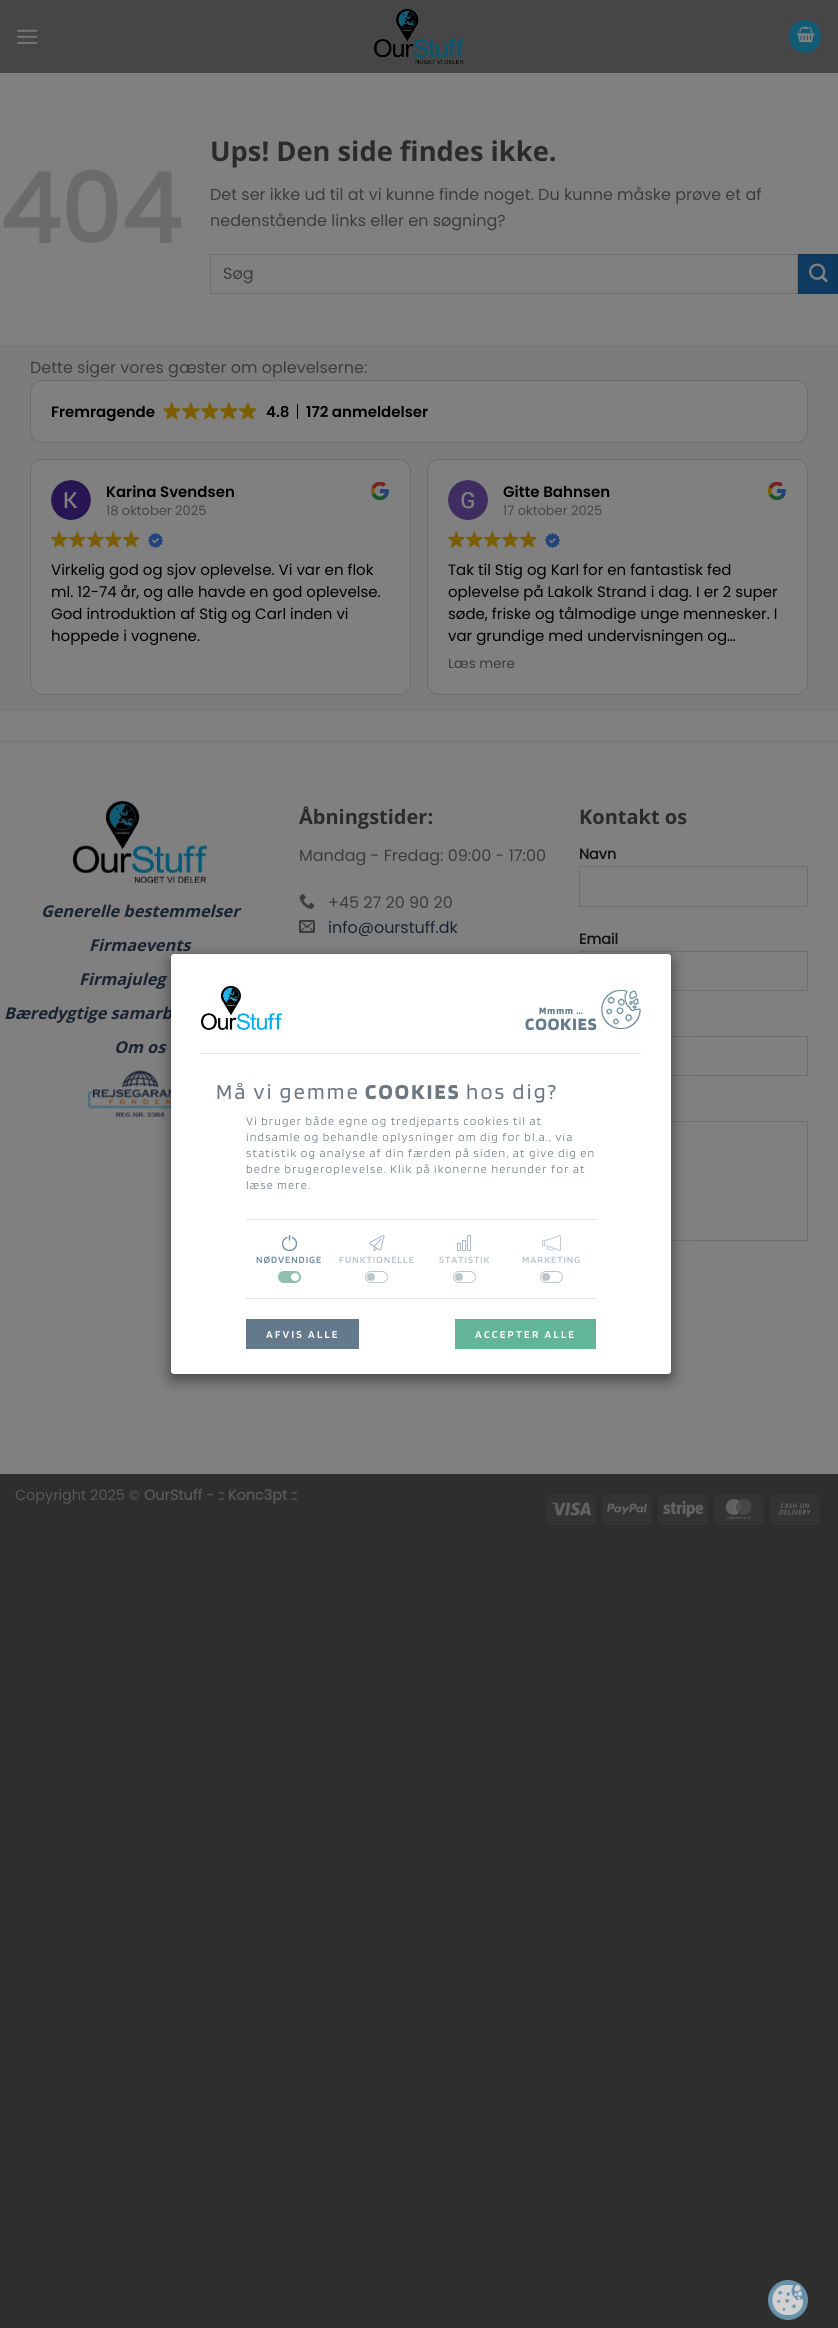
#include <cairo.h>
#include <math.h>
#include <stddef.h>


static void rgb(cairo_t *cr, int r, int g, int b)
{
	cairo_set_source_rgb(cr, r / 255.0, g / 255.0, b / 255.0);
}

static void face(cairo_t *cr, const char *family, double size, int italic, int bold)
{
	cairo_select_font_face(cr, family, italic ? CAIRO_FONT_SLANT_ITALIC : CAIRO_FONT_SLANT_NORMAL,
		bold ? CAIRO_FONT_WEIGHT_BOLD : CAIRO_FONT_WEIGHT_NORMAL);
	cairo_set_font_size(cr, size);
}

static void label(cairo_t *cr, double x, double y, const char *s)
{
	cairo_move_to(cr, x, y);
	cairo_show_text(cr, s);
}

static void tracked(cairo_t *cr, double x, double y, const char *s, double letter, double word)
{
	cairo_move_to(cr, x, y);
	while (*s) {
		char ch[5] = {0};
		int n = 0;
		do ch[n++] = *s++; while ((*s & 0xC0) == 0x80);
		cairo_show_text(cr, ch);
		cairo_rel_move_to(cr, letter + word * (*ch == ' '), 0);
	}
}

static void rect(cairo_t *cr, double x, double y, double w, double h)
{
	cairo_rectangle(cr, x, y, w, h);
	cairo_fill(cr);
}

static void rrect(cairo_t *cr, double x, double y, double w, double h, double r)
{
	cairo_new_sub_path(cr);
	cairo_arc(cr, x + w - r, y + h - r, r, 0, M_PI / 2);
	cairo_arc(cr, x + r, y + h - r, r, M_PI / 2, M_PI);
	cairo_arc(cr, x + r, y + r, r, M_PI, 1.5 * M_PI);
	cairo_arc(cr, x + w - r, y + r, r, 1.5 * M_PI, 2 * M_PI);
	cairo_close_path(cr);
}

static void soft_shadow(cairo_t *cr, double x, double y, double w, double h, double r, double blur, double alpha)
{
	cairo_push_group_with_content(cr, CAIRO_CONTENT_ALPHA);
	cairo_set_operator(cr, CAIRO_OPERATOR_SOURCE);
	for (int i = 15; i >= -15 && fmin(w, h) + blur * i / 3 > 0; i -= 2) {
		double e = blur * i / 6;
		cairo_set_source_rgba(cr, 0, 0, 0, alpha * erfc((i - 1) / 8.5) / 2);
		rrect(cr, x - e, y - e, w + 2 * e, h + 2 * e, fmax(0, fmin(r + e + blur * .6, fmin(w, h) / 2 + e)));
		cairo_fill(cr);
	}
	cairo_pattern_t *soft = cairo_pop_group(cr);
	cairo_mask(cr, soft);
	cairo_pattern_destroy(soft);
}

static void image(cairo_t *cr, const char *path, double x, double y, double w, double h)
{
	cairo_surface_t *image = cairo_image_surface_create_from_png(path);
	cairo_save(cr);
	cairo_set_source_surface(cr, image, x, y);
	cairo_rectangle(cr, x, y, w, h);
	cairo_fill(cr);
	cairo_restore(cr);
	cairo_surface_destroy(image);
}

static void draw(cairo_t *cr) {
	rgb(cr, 46, 46, 46);
	cairo_paint(cr);
	rgb(cr, 128, 128, 128);
	rect(cr, 0, 73, 838, 1401);
	rgb(cr, 70, 70, 70);
	rect(cr, 0, 0, 838, 73);
	image(cr, "image0.png", 17, 29, 21, 15);
	image(cr, "image1.png", 374, 9, 90, 55);
	rgb(cr, 17, 92, 117);
	rrect(cr, 789, 20, 32, 33, 16);
	cairo_fill(cr);
	cairo_rectangle(cr, 789.5, 20.5, 31, 32);
	cairo_set_source_rgba(cr, 0, 0, 0, 0.05);
	cairo_set_line_width(cr, 1);
	cairo_stroke(cr);
	image(cr, "image2.png", 797, 26, 18, 17);
	face(cr, "Poppins", 96, 0, 1);
	rgb(cr, 107, 107, 107);
	label(cr, 0, 243, "404");
	face(cr, "Open Sans", 27.25, 0, 1);
	rgb(cr, 43, 43, 43);
	label(cr, 210, 161, "Ups! Den side findes ikke.");
	face(cr, "Poppins", 16, 0, 0);
	rgb(cr, 60, 60, 60);
	label(cr, 210, 200, "Det ser ikke ud til at vi kunne finde noget. Du kunne måske prøve et af");
	label(cr, 210, 226, "nedenstående links eller en søgning?");
	cairo_rectangle(cr, 210.5, 254.5, 587, 39);
	rgb(cr, 111, 111, 111);
	cairo_stroke(cr);
	rgb(cr, 60, 60, 60);
	label(cr, 223, 279, "Søg");
	rgb(cr, 15, 58, 95);
	cairo_rectangle(cr, 798.5, 254.5, 39, 39);
	cairo_fill_preserve(cr);
	rgb(cr, 15, 55, 91);
	cairo_stroke(cr);
	image(cr, "image3.png", 809, 263, 19, 20);
	rgb(cr, 124, 124, 124);
	rect(cr, 0, 345, 838, 366);
	rgb(cr, 60, 60, 60);
	label(cr, 30, 373, "Dette siger vores gæster om oplevelserne:");
	rgb(cr, 128, 128, 128);
	rrect(cr, 30.5, 380.5, 777, 62, 11.5);
	cairo_fill_preserve(cr);
	rgb(cr, 109, 109, 109);
	cairo_stroke(cr);
	face(cr, "Poppins SemiBold", 15, 0, 0);
	rgb(cr, 0, 0, 0);
	label(cr, 51, 417, "Fremragende");
	image(cr, "image4.png", 163, 402, 18, 18);
	image(cr, "image4.png", 182, 402, 18, 18);
	image(cr, "image4.png", 201, 402, 18, 18);
	image(cr, "image4.png", 220, 402, 18, 18);
	image(cr, "image4.png", 239, 402, 18, 18);
	label(cr, 266, 417, "4.8");
	rect(cr, 297, 404, 1, 15);
	label(cr, 306, 417, "172 anmeldelser");
	rgb(cr, 128, 128, 128);
	rrect(cr, 30.5, 459.5, 380, 235, 11.5);
	cairo_fill_preserve(cr);
	rgb(cr, 109, 109, 109);
	cairo_stroke(cr);
	image(cr, "image5.png", 51, 480, 40, 40);
	rgb(cr, 0, 0, 0);
	label(cr, 106, 497, "Karina Svendsen");
	face(cr, "Poppins", 13, 0, 0);
	rgb(cr, 69, 69, 69);
	label(cr, 106, 515, "18 oktober 2025");
	image(cr, "image6.png", 370, 481, 19, 20);
	image(cr, "image7.png", 51, 531, 17, 17);
	image(cr, "image7.png", 69, 531, 17, 17);
	image(cr, "image7.png", 87, 531, 17, 17);
	image(cr, "image7.png", 105, 531, 17, 17);
	image(cr, "image7.png", 123, 531, 17, 17);
	image(cr, "image8.png", 148, 533, 15, 15);
	face(cr, "Poppins", 15, 0, 0);
	rgb(cr, 0, 0, 0);
	label(cr, 51, 575, "Virkelig god og sjov oplevelse. Vi var en flok");
	label(cr, 51, 597, "ml. 12-74 år, og alle havde en god oplevelse.");
	label(cr, 51, 619, "God introduktion af Stig og Carl inden vi");
	label(cr, 51, 641, "hoppede i vognene.");
	rgb(cr, 128, 128, 128);
	rrect(cr, 427.5, 459.5, 380, 235, 11.5);
	cairo_fill_preserve(cr);
	rgb(cr, 109, 109, 109);
	cairo_stroke(cr);
	image(cr, "image9.png", 448, 480, 40, 40);
	face(cr, "Poppins SemiBold", 15, 0, 0);
	rgb(cr, 0, 0, 0);
	label(cr, 503, 497, "Gitte Bahnsen");
	face(cr, "Poppins", 13, 0, 0);
	rgb(cr, 69, 69, 69);
	label(cr, 503, 515, "17 oktober 2025");
	image(cr, "image6.png", 767, 481, 19, 20);
	image(cr, "image7.png", 448, 531, 17, 17);
	image(cr, "image7.png", 466, 531, 17, 17);
	image(cr, "image7.png", 484, 531, 17, 17);
	image(cr, "image7.png", 502, 531, 17, 17);
	image(cr, "image7.png", 520, 531, 17, 17);
	image(cr, "image8.png", 545, 533, 15, 15);
	face(cr, "Poppins", 15, 0, 0);
	rgb(cr, 0, 0, 0);
	label(cr, 448, 575, "Tak til Stig og Karl for en fantastisk fed");
	label(cr, 448, 597, "oplevelse på Lakolk Strand i dag. I er 2 super");
	label(cr, 448, 619, "søde, friske og tålmodige unge mennesker. I");
	label(cr, 448, 641, "var grundige med undervisningen og…");
	face(cr, "Poppins", 13.5, 0, 0);
	rgb(cr, 60, 60, 60);
	label(cr, 448, 668, "Læs mere");
	rgb(cr, 118, 118, 118);
	rect(cr, 0, 741, 838, 1);
	face(cr, "Open Sans", 20, 0, 1);
	rgb(cr, 43, 43, 43);
	label(cr, 299, 824, "Åbningstider:");
	face(cr, "Poppins", 16, 0, 0);
	rgb(cr, 60, 60, 60);
	label(cr, 299, 861, "Mandag - Fredag: 09:00 - 17:00");
	image(cr, "image10.png", 299, 894, 16, 15);
	label(cr, 328, 908, "+45 27 20 90 20");
	image(cr, "image11.png", 299, 920, 16, 13);
	rgb(cr, 26, 36, 49);
	label(cr, 328, 933, "info@ourstuff.dk");
	face(cr, "Open Sans", 20, 0, 1);
	rgb(cr, 43, 43, 43);
	label(cr, 579, 824, "Kontakt os");
	face(cr, "Poppins", 14.4, 0, 1);
	rgb(cr, 17, 17, 17);
	label(cr, 579, 859, "Navn");
	cairo_rectangle(cr, 579.5, 866.5, 228, 40);
	rgb(cr, 111, 111, 111);
	cairo_stroke(cr);
	rgb(cr, 17, 17, 17);
	label(cr, 579, 944, "Email");
	cairo_rectangle(cr, 579.5, 951.5, 228, 39);
	rgb(cr, 111, 111, 111);
	cairo_stroke(cr);
	cairo_rectangle(cr, 579.5, 1036.5, 228, 39);
	cairo_stroke(cr);
	cairo_rectangle(cr, 579.5, 1121.5, 228, 119);
	cairo_stroke(cr);
	image(cr, "image12.png", 73, 801, 134, 82);
	face(cr, "Open Sans", 16.25, 1, 1);
	rgb(cr, 26, 36, 49);
	label(cr, 41, 917, "Generelle bestemmelser");
	label(cr, 89, 951, "Firmaevents");
	label(cr, 79, 985, "Firmajuleg");
	label(cr, 4, 1019, "Bæredygtige samarb");
	label(cr, 114, 1053, "Om os");
	image(cr, "image13.png", 87, 1070, 84, 47);
	face(cr, "Poppins", 14.4, 0, 0);
	rgb(cr, 87, 87, 87);
	label(cr, 15, 1500, "Copyright 2025 ©");
	face(cr, "Poppins", 14.4, 0, 1);
	label(cr, 144, 1500, "OurStuff - :: Konc3pt ::");
	rgb(cr, 51, 51, 51);
	rrect(cr, 546, 1494, 50, 31, 5);
	cairo_fill(cr);
	image(cr, "image14.png", 551, 1502, 40, 14);
	rrect(cr, 602, 1494, 50, 31, 5);
	cairo_fill(cr);
	image(cr, "image15.png", 607, 1503, 40, 12);
	rrect(cr, 658, 1494, 50, 31, 5);
	cairo_fill(cr);
	image(cr, "image16.png", 663, 1500, 40, 18);
	rrect(cr, 714, 1494, 50, 31, 5);
	cairo_fill(cr);
	image(cr, "image17.png", 725, 1499, 27, 20);
	rrect(cr, 770, 1494, 50, 31, 5);
	cairo_fill(cr);
	image(cr, "image18.png", 779, 1503, 32, 12);
	rgb(cr, 0, 0, 0);
	soft_shadow(cr, 171, 959, 500, 420, 3, 7.5, 0.5);
	rgb(cr, 255, 255, 255);
	rrect(cr, 171, 954, 500, 420, 3);
	cairo_fill(cr);
	rgb(cr, 223, 227, 230);
	rect(cr, 201, 1053, 440, 1);
	image(cr, "image19.png", 201, 986, 81, 44);
	face(cr, "Blinker", 10, 0, 1);
	rgb(cr, 98, 122, 140);
	tracked(cr, 539, 1014, "Mmmm …", 1, 0);
	face(cr, "Blinker", 18, 0, 1);
	tracked(cr, 525, 1030, "COOKIES", 1, 0);
	image(cr, "image20.png", 601, 990, 40, 39);
	face(cr, "Blinker", 22, 0, 0);
	rgb(cr, 108, 119, 128);
	tracked(cr, 216, 1099, "Må vi gemme", 2.25, 0);
	face(cr, "Blinker", 22, 0, 1);
	tracked(cr, 365, 1099, "COOKIES", 2.25, 0);
	face(cr, "Blinker", 22, 0, 0);
	tracked(cr, 466, 1099, "hos dig?", 2.25, 0);
	face(cr, "Blinker ExtraLight", 12, 0, 0);
	tracked(cr, 246, 1125, "Vi bruger både egne og tredjeparts cookies til at", 1.2, 0);
	tracked(cr, 246, 1141, "indsamle og behandle oplysninger om dig for bl.a., via", 1.2, 0);
	tracked(cr, 246, 1157, "statistik og analyse af din færden på siden, at give dig en", 1.2, 0);
	tracked(cr, 246, 1173, "bedre brugeroplevelse. Klik på ikonerne herunder for at", 1.2, 0);
	tracked(cr, 246, 1189, "læse mere.", 1.2, 0);
	rgb(cr, 223, 227, 230);
	rect(cr, 246, 1219, 350, 1);
	rect(cr, 246, 1298, 350, 1);
	image(cr, "image21.png", 282, 1235, 15, 16);
	face(cr, "Blinker SemiBold", 10, 0, 0);
	rgb(cr, 116, 144, 166);
	tracked(cr, 256, 1263, "NØDVENDIGE", 1, 0);
	rgb(cr, 143, 191, 175);
	rrect(cr, 278.5, 1271.5, 22, 11, 5.5);
	cairo_fill_preserve(cr);
	cairo_stroke(cr);
	rgb(cr, 255, 255, 255);
	cairo_arc(cr, 295, 1277, 4, 0, 2 * M_PI);
	cairo_fill(cr);
	image(cr, "image22.png", 369, 1235, 16, 16);
	rgb(cr, 188, 198, 205);
	tracked(cr, 339, 1263, "FUNKTIONELLE", 1, 0);
	rrect(cr, 365.5, 1271.5, 22, 11, 5.5);
	cairo_stroke(cr);
	cairo_arc(cr, 371, 1277, 4, 0, 2 * M_PI);
	cairo_fill(cr);
	image(cr, "image23.png", 457, 1235, 14, 16);
	tracked(cr, 439, 1263, "STATISTIK", 1, 0);
	rrect(cr, 453.5, 1271.5, 22, 11, 5.5);
	cairo_stroke(cr);
	cairo_arc(cr, 459, 1277, 4, 0, 2 * M_PI);
	cairo_fill(cr);
	image(cr, "image24.png", 542, 1235, 19, 16);
	tracked(cr, 522, 1263, "MARKETING", 1, 0);
	rrect(cr, 540.5, 1271.5, 22, 11, 5.5);
	cairo_stroke(cr);
	cairo_arc(cr, 546, 1277, 4, 0, 2 * M_PI);
	cairo_fill(cr);
	rgb(cr, 98, 122, 140);
	rect(cr, 246, 1319, 113, 30);
	face(cr, "Blinker SemiBold", 11, 0, 0);
	rgb(cr, 255, 255, 255);
	tracked(cr, 266, 1338, "AFVIS ALLE", 2.25, 0);
	rgb(cr, 98, 181, 153);
	rect(cr, 455, 1319, 141, 30);
	rgb(cr, 255, 255, 255);
	tracked(cr, 475, 1338, "ACCEPTER ALLE", 2.25, 0);
	image(cr, "image25.png", 768, 2280, 40, 40);
}

int main(void) {
	cairo_surface_t *surface = cairo_image_surface_create(CAIRO_FORMAT_RGB24, 838, 2328);
	cairo_t *cr = cairo_create(surface);
	cairo_font_options_t *options = cairo_font_options_create();
	cairo_font_options_set_hint_metrics(options, CAIRO_HINT_METRICS_OFF);
	cairo_font_options_set_hint_style(options, CAIRO_HINT_STYLE_NONE);
	cairo_set_font_options(cr, options);
	cairo_set_miter_limit(cr, 4);
	draw(cr);
	cairo_surface_write_to_png(surface, "render.png");
	cairo_font_options_destroy(options);
	cairo_destroy(cr);
	cairo_surface_destroy(surface);
	return 0;
}
